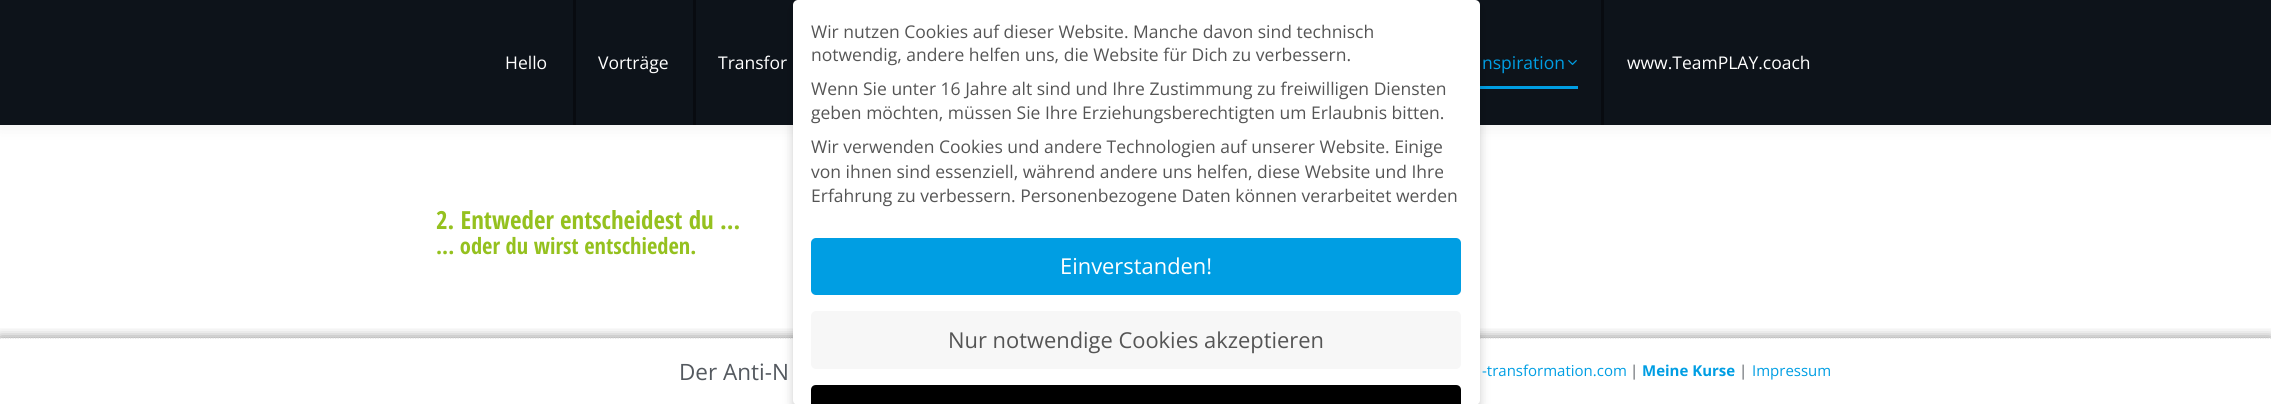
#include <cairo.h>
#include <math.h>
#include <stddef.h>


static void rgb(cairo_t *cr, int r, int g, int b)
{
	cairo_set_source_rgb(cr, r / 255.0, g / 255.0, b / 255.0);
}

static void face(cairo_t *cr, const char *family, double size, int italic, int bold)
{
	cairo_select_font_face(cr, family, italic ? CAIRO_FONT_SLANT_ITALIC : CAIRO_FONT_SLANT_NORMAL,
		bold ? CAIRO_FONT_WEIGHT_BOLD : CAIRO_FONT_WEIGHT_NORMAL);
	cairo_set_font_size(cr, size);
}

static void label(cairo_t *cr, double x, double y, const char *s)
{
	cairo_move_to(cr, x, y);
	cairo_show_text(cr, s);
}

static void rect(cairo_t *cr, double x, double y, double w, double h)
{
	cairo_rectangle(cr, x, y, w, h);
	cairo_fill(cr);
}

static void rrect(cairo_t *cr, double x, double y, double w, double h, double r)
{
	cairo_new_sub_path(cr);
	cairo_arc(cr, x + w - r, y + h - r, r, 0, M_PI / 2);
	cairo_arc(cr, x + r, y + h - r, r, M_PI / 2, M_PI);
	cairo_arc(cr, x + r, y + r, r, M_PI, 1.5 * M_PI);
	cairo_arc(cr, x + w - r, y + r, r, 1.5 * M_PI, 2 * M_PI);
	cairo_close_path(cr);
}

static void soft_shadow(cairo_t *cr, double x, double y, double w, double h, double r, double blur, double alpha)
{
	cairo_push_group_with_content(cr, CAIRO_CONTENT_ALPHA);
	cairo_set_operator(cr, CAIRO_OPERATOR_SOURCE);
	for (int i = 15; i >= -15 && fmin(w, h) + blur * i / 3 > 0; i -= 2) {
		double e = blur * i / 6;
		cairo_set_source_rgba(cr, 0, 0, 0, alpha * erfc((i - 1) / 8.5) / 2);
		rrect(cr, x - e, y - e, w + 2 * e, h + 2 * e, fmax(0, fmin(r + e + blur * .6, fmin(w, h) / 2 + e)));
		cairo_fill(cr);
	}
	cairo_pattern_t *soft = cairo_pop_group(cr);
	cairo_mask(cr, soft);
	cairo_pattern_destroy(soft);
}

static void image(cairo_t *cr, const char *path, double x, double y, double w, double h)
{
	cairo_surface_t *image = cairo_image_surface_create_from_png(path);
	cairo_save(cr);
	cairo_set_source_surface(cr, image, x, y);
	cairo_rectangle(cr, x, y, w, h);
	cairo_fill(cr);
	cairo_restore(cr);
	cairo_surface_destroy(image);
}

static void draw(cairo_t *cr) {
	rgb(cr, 255, 255, 255);
	cairo_paint(cr);
	rgb(cr, 0, 0, 0);
	soft_shadow(cr, -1, -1, 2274, 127, 0, 9.5, 0.07);
	rgb(cr, 13, 19, 26);
	rect(cr, 0, 0, 2271, 125);
	rgb(cr, 0, 158, 227);
	rect(cr, 1476, 86, 102, 3);
	cairo_save(cr);
	cairo_rectangle(cr, 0, 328, 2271, 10);
	cairo_clip(cr);
	rgb(cr, 0, 0, 0);
	soft_shadow(cr, 0, 338, 2271, 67, 0, 6, 0.5);
	cairo_restore(cr);
	cairo_new_path(cr);
	cairo_move_to(cr, 0, 338);
	cairo_line_to(cr, 2271, 338);
	rgb(cr, 214, 214, 214);
	cairo_set_line_width(cr, 1.2);
	cairo_set_dash(cr, (double[]){1.25, 1.25}, 2, 0);
	cairo_stroke(cr);
	rgb(cr, 0, 0, 0);
	soft_shadow(cr, 793, 5, 687, 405, 5, 5, 0.2);
	rgb(cr, 255, 255, 255);
	rrect(cr, 793, 0, 687, 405, 5);
	cairo_fill(cr);
	face(cr, "Open Sans", 17.5, 0, 0);
	rgb(cr, 85, 85, 85);
	label(cr, 811, 38, "Wir nutzen Cookies auf dieser Website. Manche davon sind technisch");
	label(cr, 811, 61, "notwendig, andere helfen uns, die Website für Dich zu verbessern.");
	label(cr, 811, 95, "Wenn Sie unter 16 Jahre alt sind und Ihre Zustimmung zu freiwilligen Diensten");
	label(cr, 811, 119, "geben möchten, müssen Sie Ihre Erziehungsberechtigten um Erlaubnis bitten.");
	label(cr, 811, 153, "Wir verwenden Cookies und andere Technologien auf unserer Website. Einige");
	label(cr, 811, 178, "von ihnen sind essenziell, während andere uns helfen, diese Website und Ihre");
	label(cr, 811, 202, "Erfahrung zu verbessern. Personenbezogene Daten können verarbeitet werden");
	rgb(cr, 0, 158, 227);
	rrect(cr, 811, 238, 650, 57, 5);
	cairo_fill(cr);
	face(cr, "Open Sans", 21.9, 0, 0);
	rgb(cr, 255, 255, 255);
	label(cr, 1060, 274, "Einverstanden!");
	rgb(cr, 247, 247, 247);
	rrect(cr, 811, 311, 650, 58, 5);
	cairo_fill(cr);
	rgb(cr, 85, 85, 85);
	label(cr, 948, 348, "Nur notwendige Cookies akzeptieren");
	rgb(cr, 0, 0, 0);
	cairo_new_path(cr);
	cairo_move_to(cr, 816, 385);
	cairo_line_to(cr, 1456, 385);
	cairo_curve_to(cr, 1459, 385, 1461, 387, 1461, 390);
	cairo_line_to(cr, 1461, 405);
	cairo_line_to(cr, 811, 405);
	cairo_line_to(cr, 811, 390);
	cairo_curve_to(cr, 811, 387, 813, 385, 816, 385);
	cairo_close_path(cr);
	cairo_fill(cr);
	face(cr, "Open Sans", 17.5, 0, 0);
	rgb(cr, 255, 255, 255);
	label(cr, 505, 69, "Hello");
	rgb(cr, 8, 11, 16);
	rect(cr, 573, 0, 3, 125);
	rgb(cr, 255, 255, 255);
	label(cr, 598, 69, "Vorträge");
	rgb(cr, 8, 11, 16);
	rect(cr, 693, 0, 3, 125);
	rgb(cr, 255, 255, 255);
	label(cr, 718, 69, "Transfor");
	rgb(cr, 0, 158, 227);
	label(cr, 1482, 69, "nspiration");
	image(cr, "image0.png", 1568, 60, 9, 5);
	rgb(cr, 8, 11, 16);
	rect(cr, 1601, 0, 3, 125);
	rgb(cr, 255, 255, 255);
	label(cr, 1627, 69, "www.TeamPLAY.coach");
	face(cr, "Open Sans Condensed", 25, 0, 1);
	rgb(cr, 149, 193, 31);
	label(cr, 436, 229, "2. Entweder entscheidest du …");
	face(cr, "Open Sans Condensed", 22.5, 0, 1);
	label(cr, 436, 254, "... oder du wirst entschieden.");
	face(cr, "Open Sans", 22.5, 0, 0);
	rgb(cr, 84, 89, 95);
	label(cr, 679, 380, "Der Anti-N");
	face(cr, "Open Sans", 15, 0, 0);
	rgb(cr, 0, 158, 227);
	label(cr, 1482, 376, "-transformation.com");
	rgb(cr, 84, 89, 95);
	label(cr, 1630, 376, "|");
	face(cr, "Open Sans", 15, 0, 1);
	rgb(cr, 0, 158, 227);
	label(cr, 1642, 376, "Meine Kurse");
	face(cr, "Open Sans", 15, 0, 0);
	rgb(cr, 84, 89, 95);
	label(cr, 1739, 376, "|");
	rgb(cr, 0, 158, 227);
	label(cr, 1752, 376, "Impressum");
}

int main(void) {
	cairo_surface_t *surface = cairo_image_surface_create(CAIRO_FORMAT_RGB24, 2271, 404);
	cairo_t *cr = cairo_create(surface);
	cairo_font_options_t *options = cairo_font_options_create();
	cairo_font_options_set_hint_metrics(options, CAIRO_HINT_METRICS_OFF);
	cairo_font_options_set_hint_style(options, CAIRO_HINT_STYLE_NONE);
	cairo_set_font_options(cr, options);
	cairo_set_miter_limit(cr, 4);
	draw(cr);
	cairo_surface_write_to_png(surface, "render.png");
	cairo_font_options_destroy(options);
	cairo_destroy(cr);
	cairo_surface_destroy(surface);
	return 0;
}
